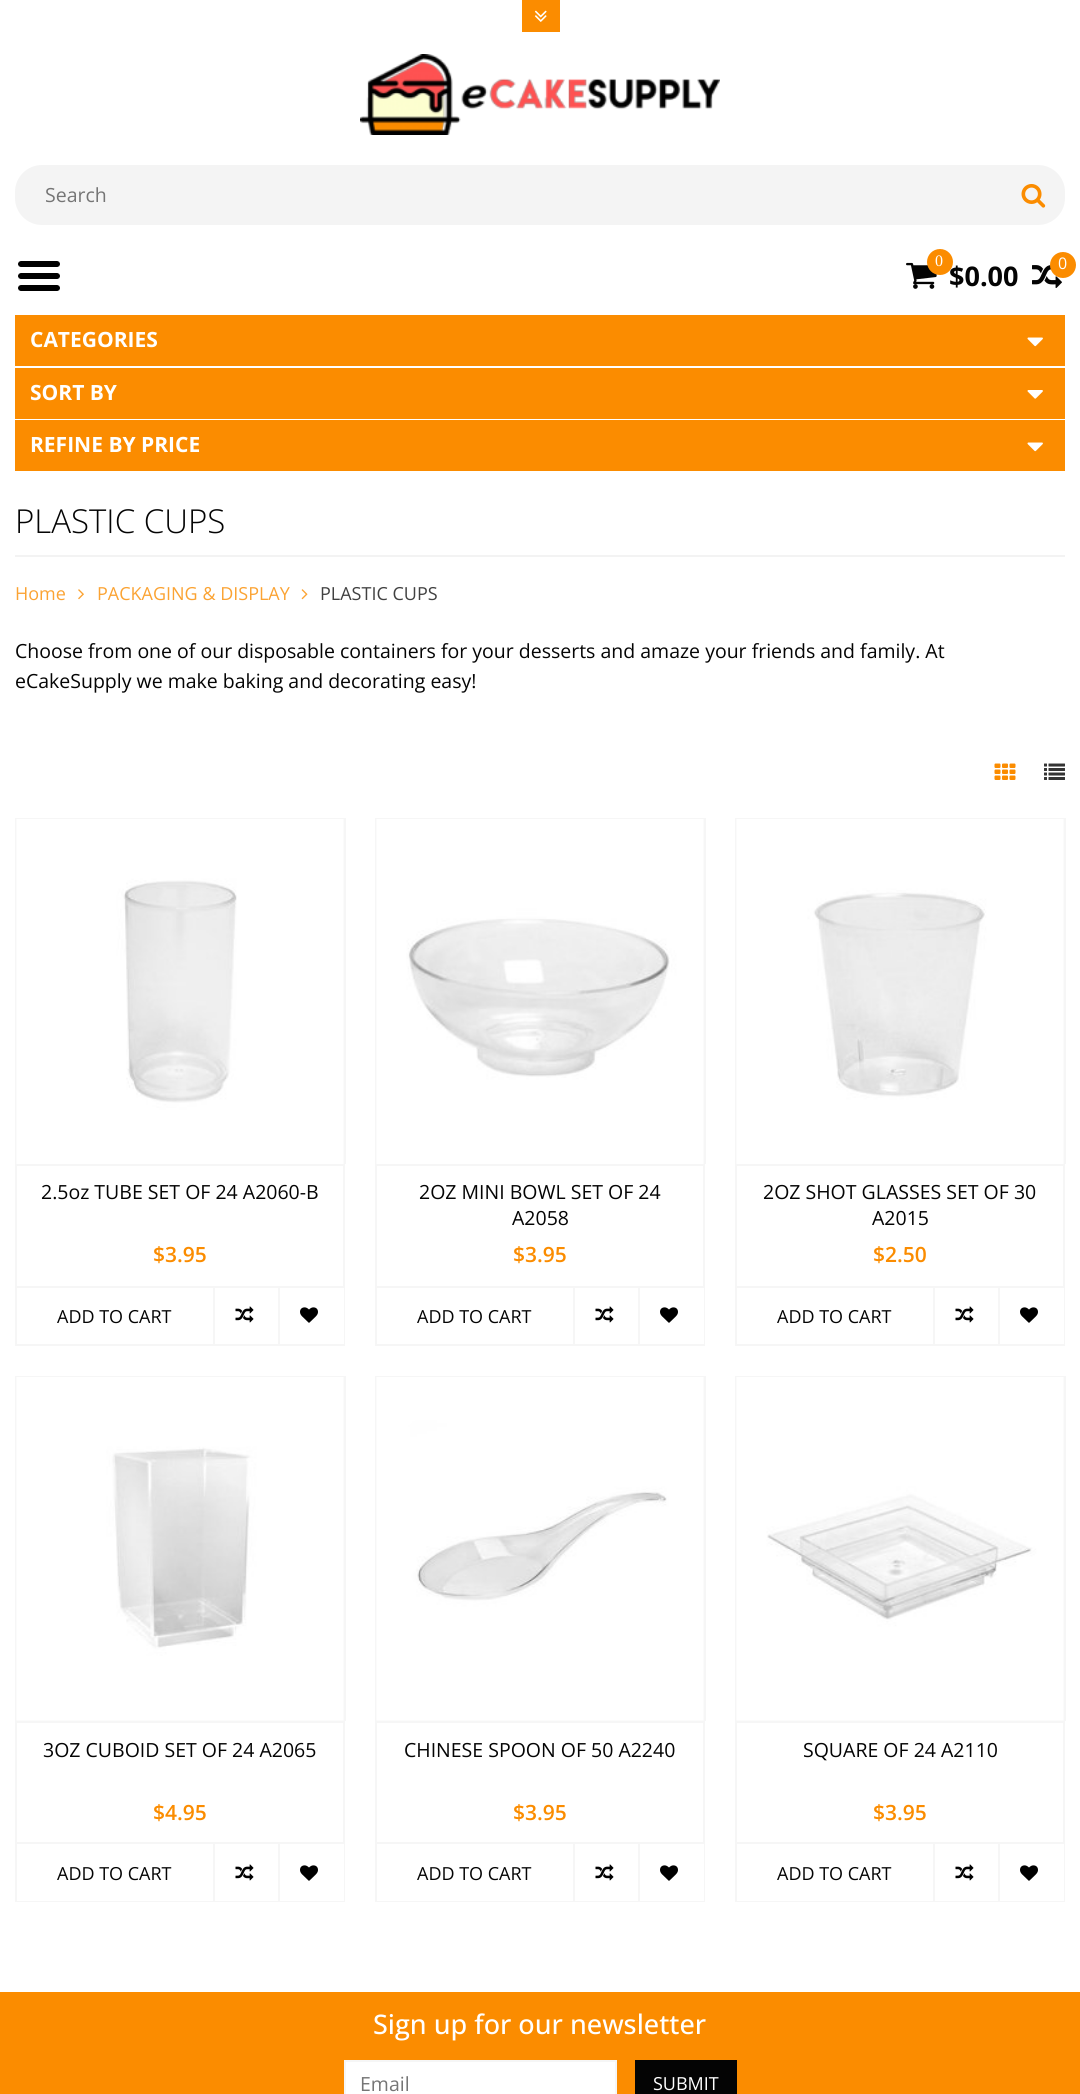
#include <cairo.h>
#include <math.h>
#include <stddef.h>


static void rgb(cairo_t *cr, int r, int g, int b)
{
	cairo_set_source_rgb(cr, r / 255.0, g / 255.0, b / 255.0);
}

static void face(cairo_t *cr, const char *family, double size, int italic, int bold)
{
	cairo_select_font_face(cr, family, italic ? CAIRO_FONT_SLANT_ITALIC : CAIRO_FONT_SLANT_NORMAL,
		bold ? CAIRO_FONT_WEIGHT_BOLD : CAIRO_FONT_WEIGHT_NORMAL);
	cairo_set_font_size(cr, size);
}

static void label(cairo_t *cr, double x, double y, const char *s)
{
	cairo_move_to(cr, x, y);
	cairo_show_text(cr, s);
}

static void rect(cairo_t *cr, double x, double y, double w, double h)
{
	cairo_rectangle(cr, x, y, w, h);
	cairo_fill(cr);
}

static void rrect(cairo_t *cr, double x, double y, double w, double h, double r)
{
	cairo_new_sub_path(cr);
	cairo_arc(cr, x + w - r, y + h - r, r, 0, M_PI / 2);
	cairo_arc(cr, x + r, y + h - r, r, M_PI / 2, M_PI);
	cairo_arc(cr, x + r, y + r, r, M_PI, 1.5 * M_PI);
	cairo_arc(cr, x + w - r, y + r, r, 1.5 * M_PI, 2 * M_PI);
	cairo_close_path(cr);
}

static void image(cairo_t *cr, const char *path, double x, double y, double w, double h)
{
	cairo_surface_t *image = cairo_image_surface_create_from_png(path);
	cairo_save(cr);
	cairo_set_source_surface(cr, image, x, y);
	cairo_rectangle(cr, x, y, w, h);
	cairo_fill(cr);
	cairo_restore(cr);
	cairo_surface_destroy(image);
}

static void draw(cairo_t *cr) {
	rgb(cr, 255, 255, 255);
	cairo_paint(cr);
	rgb(cr, 251, 140, 0);
	rect(cr, 522, 0, 38, 32);
	image(cr, "image0.png", 534, 10, 13, 12);
	image(cr, "image1.png", 360, 54, 360, 81);
	rgb(cr, 244, 244, 244);
	rrect(cr, 15, 165, 1050, 60, 27);
	cairo_fill(cr);
	face(cr, "Open Sans", 19.5, 0, 0);
	rgb(cr, 117, 117, 117);
	label(cr, 45, 202, "Search");
	image(cr, "image2.png", 1021, 184, 25, 24);
	image(cr, "image3.png", 18, 261, 42, 30);
	image(cr, "image4.png", 906, 262, 31, 27);
	face(cr, "Open Sans", 27, 0, 1);
	rgb(cr, 4, 4, 4);
	label(cr, 949, 286, "$0.00");
	rgb(cr, 251, 140, 0);
	cairo_new_path(cr);
	cairo_arc(cr, 940, 262, 13, 0, 2 * M_PI);
	cairo_fill(cr);
	face(cr, "Liberation Serif", 16, 0, 0);
	rgb(cr, 255, 255, 255);
	label(cr, 935, 266, "0");
	image(cr, "image5.png", 1032, 265, 30, 23);
	rgb(cr, 251, 140, 0);
	cairo_arc(cr, 1063, 265, 13, 0, 2 * M_PI);
	cairo_fill(cr);
	face(cr, "Open Sans", 16, 0, 0);
	rgb(cr, 255, 255, 255);
	label(cr, 1058, 269, "0");
	rgb(cr, 251, 140, 0);
	rect(cr, 15, 315, 1050, 51);
	face(cr, "Open Sans", 21, 0, 1);
	rgb(cr, 255, 255, 255);
	label(cr, 30, 347, "CATEGORIES");
	image(cr, "image6.png", 1027, 337, 16, 10);
	rgb(cr, 251, 140, 0);
	rect(cr, 15, 368, 1050, 51);
	rgb(cr, 255, 255, 255);
	label(cr, 30, 400, "SORT BY");
	image(cr, "image7.png", 1027, 390, 16, 9);
	rgb(cr, 251, 140, 0);
	rect(cr, 15, 420, 1050, 51);
	rgb(cr, 255, 255, 255);
	label(cr, 30, 452, "REFINE BY PRICE");
	image(cr, "image6.png", 1027, 442, 16, 10);
	rgb(cr, 243, 243, 243);
	rect(cr, 15, 555, 1050, 2);
	face(cr, "Open Sans Light", 33, 0, 0);
	rgb(cr, 4, 4, 4);
	label(cr, 15, 533, "PLASTIC CUPS");
	face(cr, "Open Sans", 18, 0, 0);
	rgb(cr, 251, 163, 51);
	label(cr, 15, 600, "Home");
	image(cr, "image8.png", 78, 589, 6, 11);
	label(cr, 97, 600, "PACKAGING & DISPLAY");
	image(cr, "image9.png", 301, 589, 7, 11);
	rgb(cr, 65, 65, 65);
	label(cr, 320, 600, "PLASTIC CUPS");
	face(cr, "Open Sans", 19.5, 0, 0);
	rgb(cr, 4, 4, 4);
	label(cr, 15, 658, "Choose from one of our disposable containers for your desserts and amaze your friends and family. At");
	label(cr, 15, 688, "eCakeSupply we make baking and decorating easy!");
	image(cr, "image10.png", 994, 763, 22, 17);
	image(cr, "image11.png", 1044, 763, 21, 17);
	rgb(cr, 246, 246, 246);
	rect(cr, 15, 818, 330, 1);
	rect(cr, 344, 818, 2, 346);
	rect(cr, 15, 818, 2, 346);
	rgb(cr, 247, 247, 247);
	rect(cr, 343, 819, 1, 345);
	image(cr, "image12.png", 16, 819, 328, 345);
	cairo_rectangle(cr, 16, 1165, 328, 180);
	rgb(cr, 246, 246, 246);
	cairo_stroke(cr);
	rgb(cr, 4, 4, 4);
	label(cr, 41, 1199, "2.5oz TUBE SET OF 24 A2060-B");
	face(cr, "Open Sans SemiBold", 21, 0, 0);
	rgb(cr, 251, 140, 0);
	label(cr, 153, 1262, "$3.95");
	rgb(cr, 255, 255, 255);
	rect(cr, 343, 1288, 1, 56);
	rgb(cr, 246, 246, 246);
	rect(cr, 17, 1286, 327, 2);
	face(cr, "Open Sans", 18, 0, 0);
	rgb(cr, 4, 4, 4);
	label(cr, 57, 1323, "ADD TO CART");
	rgb(cr, 246, 246, 246);
	rect(cr, 213, 1287, 2, 57);
	image(cr, "image13.png", 235, 1306, 19, 17);
	rect(cr, 278, 1287, 2, 57);
	image(cr, "image14.png", 300, 1307, 18, 16);
	rect(cr, 375, 818, 330, 1);
	rect(cr, 704, 818, 2, 346);
	rect(cr, 375, 818, 2, 346);
	rgb(cr, 247, 247, 247);
	rect(cr, 703, 819, 1, 345);
	image(cr, "image15.png", 376, 819, 328, 345);
	cairo_rectangle(cr, 376, 1165, 328, 180);
	rgb(cr, 246, 246, 246);
	cairo_stroke(cr);
	face(cr, "Open Sans", 19.5, 0, 0);
	rgb(cr, 4, 4, 4);
	label(cr, 419, 1199, "2OZ MINI BOWL SET OF 24");
	label(cr, 512, 1225, "A2058");
	face(cr, "Open Sans SemiBold", 21, 0, 0);
	rgb(cr, 251, 140, 0);
	label(cr, 513, 1262, "$3.95");
	rgb(cr, 255, 255, 255);
	rect(cr, 703, 1288, 1, 56);
	rgb(cr, 246, 246, 246);
	rect(cr, 377, 1286, 327, 2);
	face(cr, "Open Sans", 18, 0, 0);
	rgb(cr, 4, 4, 4);
	label(cr, 417, 1323, "ADD TO CART");
	rgb(cr, 246, 246, 246);
	rect(cr, 573, 1287, 2, 57);
	image(cr, "image13.png", 595, 1306, 19, 17);
	rect(cr, 638, 1287, 2, 57);
	image(cr, "image14.png", 660, 1307, 18, 16);
	rect(cr, 735, 818, 330, 1);
	rect(cr, 1064, 818, 2, 346);
	rect(cr, 735, 818, 2, 346);
	rgb(cr, 247, 247, 247);
	rect(cr, 1063, 819, 1, 345);
	image(cr, "image16.png", 736, 819, 328, 345);
	cairo_rectangle(cr, 736, 1165, 328, 180);
	rgb(cr, 246, 246, 246);
	cairo_stroke(cr);
	face(cr, "Open Sans", 19.5, 0, 0);
	rgb(cr, 4, 4, 4);
	label(cr, 763, 1199, "2OZ SHOT GLASSES SET OF 30");
	label(cr, 872, 1225, "A2015");
	face(cr, "Open Sans SemiBold", 21, 0, 0);
	rgb(cr, 251, 140, 0);
	label(cr, 873, 1262, "$2.50");
	rgb(cr, 255, 255, 255);
	rect(cr, 1063, 1288, 1, 56);
	rgb(cr, 246, 246, 246);
	rect(cr, 737, 1286, 327, 2);
	face(cr, "Open Sans", 18, 0, 0);
	rgb(cr, 4, 4, 4);
	label(cr, 777, 1323, "ADD TO CART");
	rgb(cr, 246, 246, 246);
	rect(cr, 933, 1287, 2, 57);
	image(cr, "image13.png", 955, 1306, 19, 17);
	rect(cr, 998, 1287, 2, 57);
	image(cr, "image14.png", 1020, 1307, 18, 16);
	rect(cr, 15, 1376, 330, 1);
	rect(cr, 344, 1376, 2, 345);
	rect(cr, 15, 1376, 2, 345);
	rgb(cr, 247, 247, 247);
	rect(cr, 17, 1377, 327, 344);
	image(cr, "image17.png", 16, 1377, 328, 344);
	cairo_rectangle(cr, 16, 1722, 328, 179);
	rgb(cr, 246, 246, 246);
	cairo_stroke(cr);
	face(cr, "Open Sans", 19.5, 0, 0);
	rgb(cr, 4, 4, 4);
	label(cr, 43, 1757, "3OZ CUBOID SET OF 24 A2065");
	face(cr, "Open Sans SemiBold", 21, 0, 0);
	rgb(cr, 251, 140, 0);
	label(cr, 153, 1820, "$4.95");
	rgb(cr, 255, 255, 255);
	rect(cr, 17, 1844, 327, 57);
	rgb(cr, 246, 246, 246);
	rect(cr, 17, 1842, 327, 2);
	face(cr, "Open Sans", 18, 0, 0);
	rgb(cr, 4, 4, 4);
	label(cr, 57, 1880, "ADD TO CART");
	rgb(cr, 246, 246, 246);
	rect(cr, 213, 1844, 2, 57);
	image(cr, "image13.png", 235, 1864, 19, 17);
	rect(cr, 278, 1844, 2, 57);
	image(cr, "image14.png", 300, 1865, 18, 16);
	rect(cr, 375, 1376, 330, 1);
	rect(cr, 704, 1376, 2, 345);
	rect(cr, 375, 1376, 2, 345);
	rgb(cr, 247, 247, 247);
	rect(cr, 377, 1377, 327, 344);
	image(cr, "image18.png", 376, 1377, 328, 344);
	cairo_rectangle(cr, 376, 1722, 328, 179);
	rgb(cr, 246, 246, 246);
	cairo_stroke(cr);
	face(cr, "Open Sans", 19.5, 0, 0);
	rgb(cr, 4, 4, 4);
	label(cr, 404, 1757, "CHINESE SPOON OF 50 A2240");
	face(cr, "Open Sans SemiBold", 21, 0, 0);
	rgb(cr, 251, 140, 0);
	label(cr, 513, 1820, "$3.95");
	rgb(cr, 255, 255, 255);
	rect(cr, 377, 1844, 327, 57);
	rgb(cr, 246, 246, 246);
	rect(cr, 377, 1842, 327, 2);
	face(cr, "Open Sans", 18, 0, 0);
	rgb(cr, 4, 4, 4);
	label(cr, 417, 1880, "ADD TO CART");
	rgb(cr, 246, 246, 246);
	rect(cr, 573, 1844, 2, 57);
	image(cr, "image13.png", 595, 1864, 19, 17);
	rect(cr, 638, 1844, 2, 57);
	image(cr, "image14.png", 660, 1865, 18, 16);
	rect(cr, 735, 1376, 330, 1);
	rect(cr, 1064, 1376, 2, 345);
	rect(cr, 735, 1376, 2, 345);
	rgb(cr, 247, 247, 247);
	rect(cr, 737, 1377, 327, 344);
	image(cr, "image19.png", 736, 1377, 328, 344);
	cairo_rectangle(cr, 736, 1722, 328, 179);
	rgb(cr, 246, 246, 246);
	cairo_stroke(cr);
	face(cr, "Open Sans", 19.5, 0, 0);
	rgb(cr, 4, 4, 4);
	label(cr, 803, 1757, "SQUARE OF 24 A2110");
	face(cr, "Open Sans SemiBold", 21, 0, 0);
	rgb(cr, 251, 140, 0);
	label(cr, 873, 1820, "$3.95");
	rgb(cr, 255, 255, 255);
	rect(cr, 737, 1844, 327, 57);
	rgb(cr, 246, 246, 246);
	rect(cr, 737, 1842, 327, 2);
	face(cr, "Open Sans", 18, 0, 0);
	rgb(cr, 4, 4, 4);
	label(cr, 777, 1880, "ADD TO CART");
	rgb(cr, 246, 246, 246);
	rect(cr, 933, 1844, 2, 57);
	image(cr, "image13.png", 955, 1864, 19, 17);
	rect(cr, 998, 1844, 2, 57);
	image(cr, "image14.png", 1020, 1865, 18, 16);
	rgb(cr, 251, 140, 0);
	rect(cr, 0, 1992, 1080, 102);
	face(cr, "Open Sans Medium", 27, 0, 0);
	rgb(cr, 255, 255, 255);
	label(cr, 373, 2034, "Sign up for our newsletter");
	cairo_rectangle(cr, 345, 2061, 271, 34);
	cairo_fill_preserve(cr);
	rgb(cr, 246, 246, 246);
	cairo_stroke(cr);
	face(cr, "Open Sans", 19.5, 0, 0);
	rgb(cr, 117, 117, 117);
	label(cr, 360, 2091, "Email");
	rgb(cr, 4, 4, 4);
	rect(cr, 635, 2060, 102, 34);
	face(cr, "Open Sans", 18, 0, 0);
	rgb(cr, 255, 255, 255);
	label(cr, 653, 2090, "SUBMIT");
}

int main(void) {
	cairo_surface_t *surface = cairo_image_surface_create(CAIRO_FORMAT_RGB24, 1080, 2094);
	cairo_t *cr = cairo_create(surface);
	cairo_font_options_t *options = cairo_font_options_create();
	cairo_font_options_set_hint_metrics(options, CAIRO_HINT_METRICS_OFF);
	cairo_font_options_set_hint_style(options, CAIRO_HINT_STYLE_NONE);
	cairo_set_font_options(cr, options);
	cairo_set_miter_limit(cr, 4);
	draw(cr);
	cairo_surface_write_to_png(surface, "render.png");
	cairo_font_options_destroy(options);
	cairo_destroy(cr);
	cairo_surface_destroy(surface);
	return 0;
}
